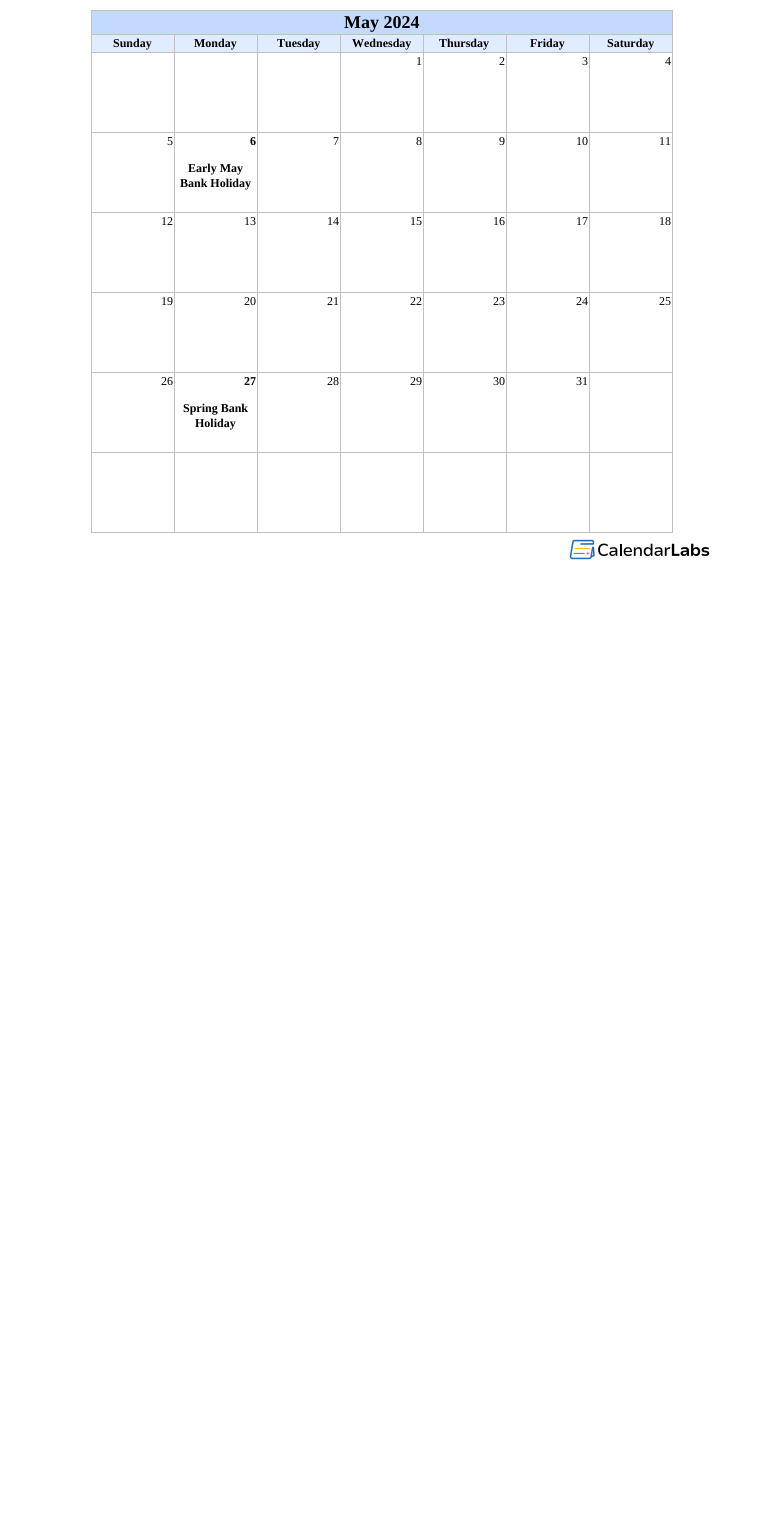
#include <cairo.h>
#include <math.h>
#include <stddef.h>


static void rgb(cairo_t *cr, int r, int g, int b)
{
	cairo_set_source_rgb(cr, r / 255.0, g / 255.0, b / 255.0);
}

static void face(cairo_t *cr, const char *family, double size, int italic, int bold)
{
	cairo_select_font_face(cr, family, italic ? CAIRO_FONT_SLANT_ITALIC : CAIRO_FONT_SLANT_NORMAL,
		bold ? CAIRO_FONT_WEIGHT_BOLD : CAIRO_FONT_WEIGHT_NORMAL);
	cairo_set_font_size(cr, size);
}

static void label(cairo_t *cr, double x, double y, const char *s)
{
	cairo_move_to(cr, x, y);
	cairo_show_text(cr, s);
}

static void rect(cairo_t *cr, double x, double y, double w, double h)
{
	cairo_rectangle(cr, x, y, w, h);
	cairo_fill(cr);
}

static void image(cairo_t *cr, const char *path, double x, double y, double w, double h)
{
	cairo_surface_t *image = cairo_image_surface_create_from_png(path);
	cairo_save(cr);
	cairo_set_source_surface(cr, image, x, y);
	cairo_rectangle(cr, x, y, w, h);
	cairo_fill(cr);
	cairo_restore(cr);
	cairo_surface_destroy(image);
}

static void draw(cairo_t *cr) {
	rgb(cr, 255, 255, 255);
	cairo_paint(cr);
	rgb(cr, 195, 217, 255);
	rect(cr, 92, 11, 580, 23);
	rgb(cr, 192, 192, 192);
	rect(cr, 91, 10, 582, 1);
	rect(cr, 589, 34, 84, 1);
	rect(cr, 589, 52, 84, 1);
	rect(cr, 589, 132, 84, 1);
	rect(cr, 589, 212, 84, 1);
	rect(cr, 589, 292, 84, 1);
	rect(cr, 589, 372, 84, 1);
	rect(cr, 589, 452, 84, 1);
	rect(cr, 672, 452, 1, 81);
	rect(cr, 672, 372, 1, 81);
	rect(cr, 672, 292, 1, 81);
	rect(cr, 672, 212, 1, 81);
	rect(cr, 672, 132, 1, 81);
	rect(cr, 672, 52, 1, 81);
	rect(cr, 672, 34, 1, 19);
	rect(cr, 672, 10, 1, 25);
	rect(cr, 589, 532, 84, 1);
	rect(cr, 589, 452, 1, 81);
	rect(cr, 506, 452, 84, 1);
	rect(cr, 589, 372, 1, 81);
	rect(cr, 506, 372, 84, 1);
	rect(cr, 589, 292, 1, 81);
	rect(cr, 506, 292, 84, 1);
	rect(cr, 589, 212, 1, 81);
	rect(cr, 506, 212, 84, 1);
	rect(cr, 589, 132, 1, 81);
	rect(cr, 506, 132, 84, 1);
	rect(cr, 589, 52, 1, 81);
	rect(cr, 506, 52, 84, 1);
	rect(cr, 589, 34, 1, 19);
	rect(cr, 506, 34, 84, 1);
	rect(cr, 506, 532, 84, 1);
	rect(cr, 506, 452, 1, 81);
	rect(cr, 423, 452, 84, 1);
	rect(cr, 506, 372, 1, 81);
	rect(cr, 423, 372, 84, 1);
	rect(cr, 506, 292, 1, 81);
	rect(cr, 423, 292, 84, 1);
	rect(cr, 506, 212, 1, 81);
	rect(cr, 423, 212, 84, 1);
	rect(cr, 506, 132, 1, 81);
	rect(cr, 423, 132, 84, 1);
	rect(cr, 506, 52, 1, 81);
	rect(cr, 423, 52, 84, 1);
	rect(cr, 506, 34, 1, 19);
	rect(cr, 423, 34, 84, 1);
	rect(cr, 423, 532, 84, 1);
	rect(cr, 423, 452, 1, 81);
	rect(cr, 340, 452, 84, 1);
	rect(cr, 423, 372, 1, 81);
	rect(cr, 340, 372, 84, 1);
	rect(cr, 423, 292, 1, 81);
	rect(cr, 340, 292, 84, 1);
	rect(cr, 423, 212, 1, 81);
	rect(cr, 340, 212, 84, 1);
	rect(cr, 423, 132, 1, 81);
	rect(cr, 340, 132, 84, 1);
	rect(cr, 423, 52, 1, 81);
	rect(cr, 340, 52, 84, 1);
	rect(cr, 423, 34, 1, 19);
	rect(cr, 340, 34, 84, 1);
	rect(cr, 340, 532, 84, 1);
	rect(cr, 340, 452, 1, 81);
	rect(cr, 257, 452, 84, 1);
	rect(cr, 340, 372, 1, 81);
	rect(cr, 257, 372, 84, 1);
	rect(cr, 340, 292, 1, 81);
	rect(cr, 257, 292, 84, 1);
	rect(cr, 340, 212, 1, 81);
	rect(cr, 257, 212, 84, 1);
	rect(cr, 340, 132, 1, 81);
	rect(cr, 257, 132, 84, 1);
	rect(cr, 340, 52, 1, 81);
	rect(cr, 257, 52, 84, 1);
	rect(cr, 340, 34, 1, 19);
	rect(cr, 257, 34, 84, 1);
	rect(cr, 257, 532, 84, 1);
	rect(cr, 257, 452, 1, 81);
	rect(cr, 174, 452, 84, 1);
	rect(cr, 257, 372, 1, 81);
	rect(cr, 174, 372, 84, 1);
	rect(cr, 257, 292, 1, 81);
	rect(cr, 174, 292, 84, 1);
	rect(cr, 257, 212, 1, 81);
	rect(cr, 174, 212, 84, 1);
	rect(cr, 257, 132, 1, 81);
	rect(cr, 174, 132, 84, 1);
	rect(cr, 257, 52, 1, 81);
	rect(cr, 174, 52, 84, 1);
	rect(cr, 257, 34, 1, 19);
	rect(cr, 174, 34, 84, 1);
	rect(cr, 174, 532, 84, 1);
	rect(cr, 174, 452, 1, 81);
	rect(cr, 91, 452, 84, 1);
	rect(cr, 174, 372, 1, 81);
	rect(cr, 91, 372, 84, 1);
	rect(cr, 174, 292, 1, 81);
	rect(cr, 91, 292, 84, 1);
	rect(cr, 174, 212, 1, 81);
	rect(cr, 91, 212, 84, 1);
	rect(cr, 174, 132, 1, 81);
	rect(cr, 91, 132, 84, 1);
	rect(cr, 174, 52, 1, 81);
	rect(cr, 91, 52, 84, 1);
	rect(cr, 174, 34, 1, 19);
	rect(cr, 91, 34, 84, 1);
	rect(cr, 91, 532, 84, 1);
	rect(cr, 91, 452, 1, 81);
	rect(cr, 91, 372, 1, 81);
	rect(cr, 91, 292, 1, 81);
	rect(cr, 91, 212, 1, 81);
	rect(cr, 91, 132, 1, 81);
	rect(cr, 91, 52, 1, 81);
	rect(cr, 91, 34, 1, 19);
	rect(cr, 91, 10, 1, 25);
	face(cr, "Liberation Serif", 18, 0, 1);
	rgb(cr, 0, 0, 0);
	label(cr, 344, 28, "May 2024");
	rgb(cr, 224, 236, 255);
	rect(cr, 92, 35, 82, 17);
	face(cr, "Liberation Serif", 12, 0, 1);
	rgb(cr, 0, 0, 0);
	label(cr, 113, 47, "Sunday");
	rgb(cr, 224, 236, 255);
	rect(cr, 175, 35, 82, 17);
	rgb(cr, 0, 0, 0);
	label(cr, 194, 47, "Monday");
	rgb(cr, 224, 236, 255);
	rect(cr, 258, 35, 82, 17);
	rgb(cr, 0, 0, 0);
	label(cr, 277, 47, "Tuesday");
	rgb(cr, 224, 236, 255);
	rect(cr, 341, 35, 82, 17);
	rgb(cr, 0, 0, 0);
	label(cr, 352, 47, "Wednesday");
	rgb(cr, 224, 236, 255);
	rect(cr, 424, 35, 82, 17);
	rgb(cr, 0, 0, 0);
	label(cr, 439, 47, "Thursday");
	rgb(cr, 224, 236, 255);
	rect(cr, 507, 35, 82, 17);
	rgb(cr, 0, 0, 0);
	label(cr, 530, 47, "Friday");
	rgb(cr, 224, 236, 255);
	rect(cr, 590, 35, 82, 17);
	rgb(cr, 0, 0, 0);
	label(cr, 607, 47, "Saturday");
	face(cr, "Liberation Serif", 12, 0, 0);
	label(cr, 416, 65, "1");
	label(cr, 499, 65, "2");
	label(cr, 582, 65, "3");
	label(cr, 665, 65, "4");
	label(cr, 167, 145, "5");
	face(cr, "Liberation Serif", 12, 0, 1);
	label(cr, 250, 145, "6");
	label(cr, 188, 172, "Early May");
	label(cr, 180, 187, "Bank Holiday");
	face(cr, "Liberation Serif", 12, 0, 0);
	label(cr, 333, 145, "7");
	label(cr, 416, 145, "8");
	label(cr, 499, 145, "9");
	label(cr, 576, 145, "10");
	label(cr, 659, 145, "11");
	label(cr, 161, 225, "12");
	label(cr, 244, 225, "13");
	label(cr, 327, 225, "14");
	label(cr, 410, 225, "15");
	label(cr, 493, 225, "16");
	label(cr, 576, 225, "17");
	label(cr, 659, 225, "18");
	label(cr, 161, 305, "19");
	label(cr, 244, 305, "20");
	label(cr, 327, 305, "21");
	label(cr, 410, 305, "22");
	label(cr, 493, 305, "23");
	label(cr, 576, 305, "24");
	label(cr, 659, 305, "25");
	label(cr, 161, 385, "26");
	face(cr, "Liberation Serif", 12, 0, 1);
	label(cr, 244, 385, "27");
	label(cr, 183, 412, "Spring Bank");
	label(cr, 195, 427, "Holiday");
	face(cr, "Liberation Serif", 12, 0, 0);
	label(cr, 327, 385, "28");
	label(cr, 410, 385, "29");
	label(cr, 493, 385, "30");
	label(cr, 576, 385, "31");
	image(cr, "image0.png", 569, 539, 141, 21);
}

int main(void) {
	cairo_surface_t *surface = cairo_image_surface_create(CAIRO_FORMAT_RGB24, 763, 1514);
	cairo_t *cr = cairo_create(surface);
	cairo_font_options_t *options = cairo_font_options_create();
	cairo_font_options_set_hint_metrics(options, CAIRO_HINT_METRICS_OFF);
	cairo_font_options_set_hint_style(options, CAIRO_HINT_STYLE_NONE);
	cairo_set_font_options(cr, options);
	cairo_set_miter_limit(cr, 4);
	draw(cr);
	cairo_surface_write_to_png(surface, "render.png");
	cairo_font_options_destroy(options);
	cairo_destroy(cr);
	cairo_surface_destroy(surface);
	return 0;
}
